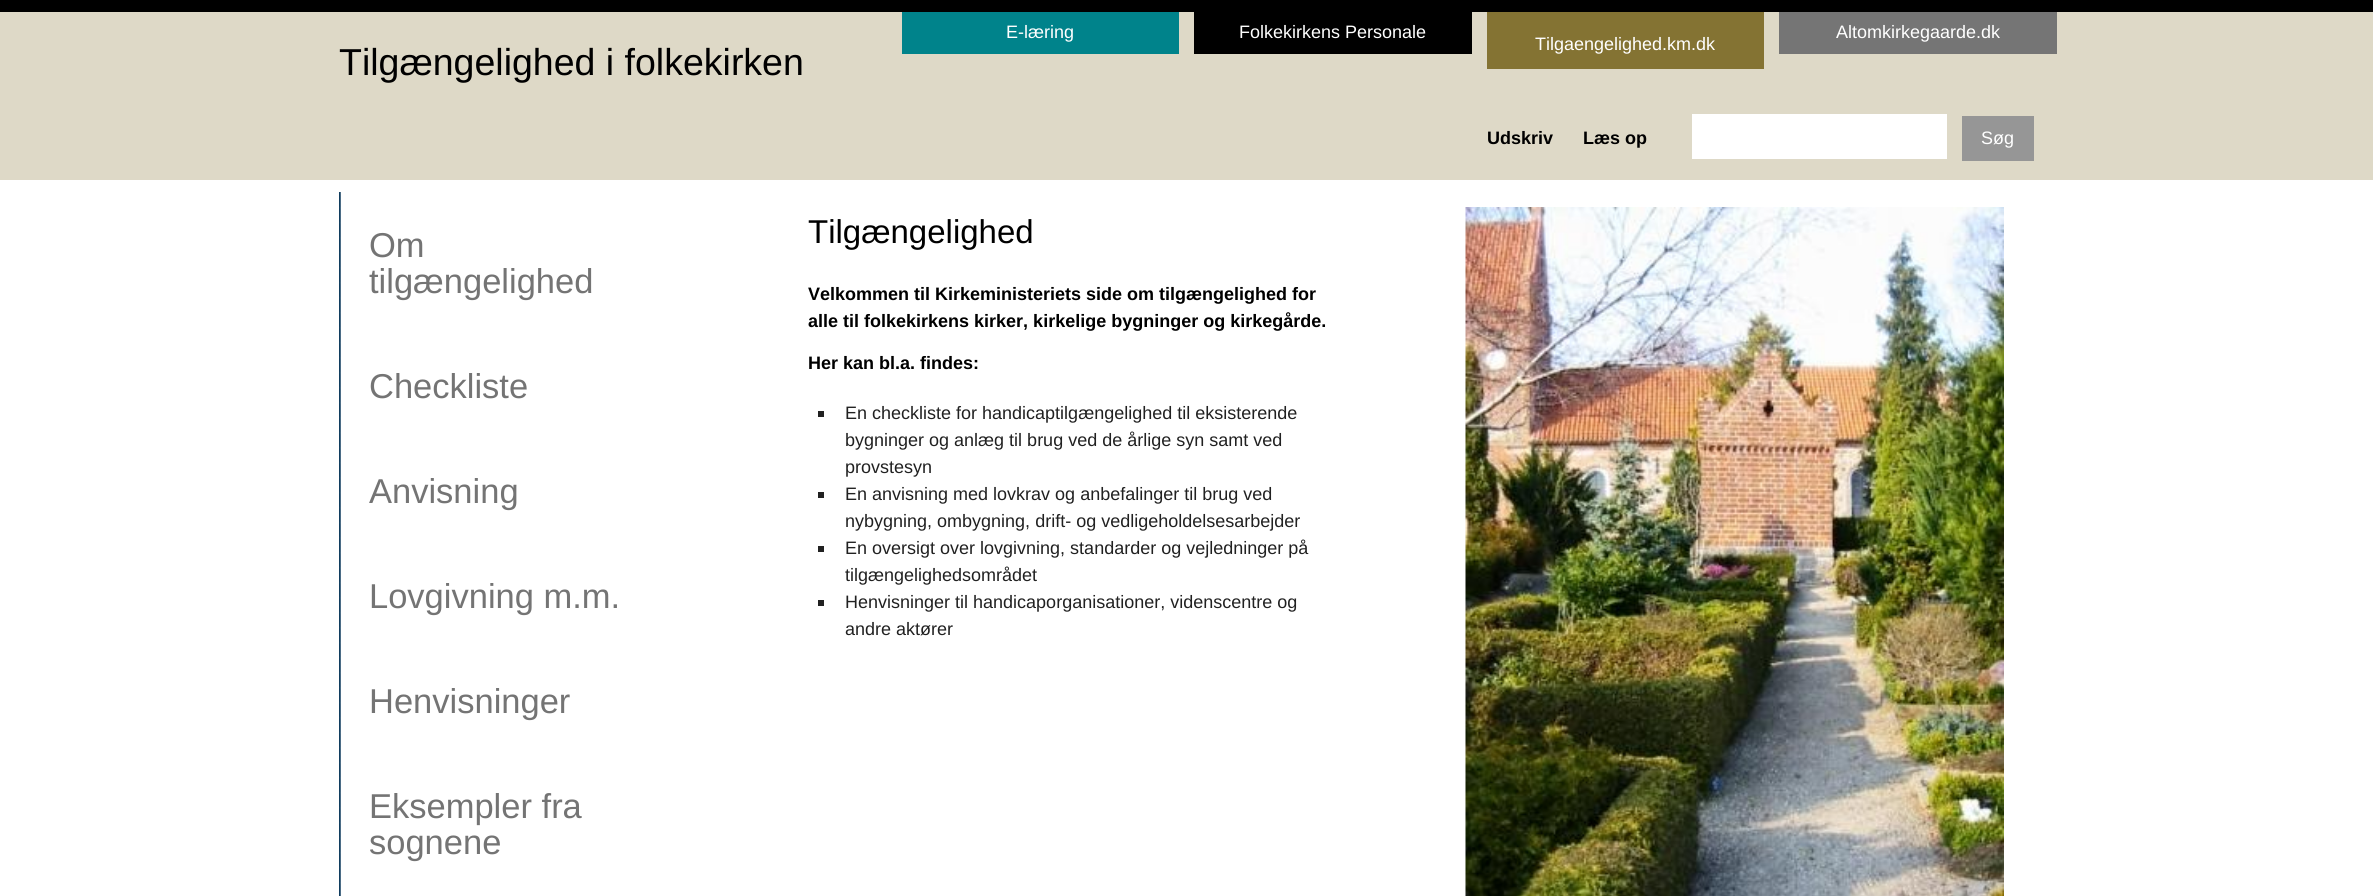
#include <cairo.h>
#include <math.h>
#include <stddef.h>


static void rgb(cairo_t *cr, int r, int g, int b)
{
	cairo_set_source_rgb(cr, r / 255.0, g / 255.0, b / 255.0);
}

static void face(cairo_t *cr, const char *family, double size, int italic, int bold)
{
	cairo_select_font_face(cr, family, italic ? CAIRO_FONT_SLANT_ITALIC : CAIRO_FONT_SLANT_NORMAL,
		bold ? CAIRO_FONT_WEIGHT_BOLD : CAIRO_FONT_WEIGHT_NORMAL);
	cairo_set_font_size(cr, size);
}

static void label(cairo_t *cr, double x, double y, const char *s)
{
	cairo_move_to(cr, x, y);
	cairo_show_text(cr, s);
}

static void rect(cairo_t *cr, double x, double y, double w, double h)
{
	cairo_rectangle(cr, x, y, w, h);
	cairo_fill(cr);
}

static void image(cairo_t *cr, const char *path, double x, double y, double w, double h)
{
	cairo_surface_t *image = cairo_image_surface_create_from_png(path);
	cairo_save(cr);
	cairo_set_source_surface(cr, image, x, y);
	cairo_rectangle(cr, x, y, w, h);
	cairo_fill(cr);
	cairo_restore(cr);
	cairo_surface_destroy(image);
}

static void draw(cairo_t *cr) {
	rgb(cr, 255, 255, 255);
	cairo_paint(cr);
	rgb(cr, 222, 217, 199);
	rect(cr, 0, 12, 2373, 168);
	rgb(cr, 0, 0, 0);
	rect(cr, 0, 0, 2373, 12);
	face(cr, "Liberation Sans", 37.5, 0, 0);
	label(cr, 339, 75, "Tilgængelighed i folkekirken");
	rgb(cr, 0, 131, 139);
	rect(cr, 902, 12, 277, 42);
	face(cr, "Liberation Sans", 18, 0, 0);
	rgb(cr, 255, 255, 255);
	label(cr, 1006, 38, "E-læring");
	rgb(cr, 0, 0, 0);
	rect(cr, 1194, 12, 278, 42);
	rgb(cr, 255, 255, 255);
	label(cr, 1239, 38, "Folkekirkens Personale");
	rgb(cr, 117, 117, 117);
	rect(cr, 1779, 12, 278, 42);
	rgb(cr, 255, 255, 255);
	label(cr, 1836, 38, "Altomkirkegaarde.dk");
	rgb(cr, 132, 115, 51);
	rect(cr, 1487, 12, 277, 57);
	rgb(cr, 255, 255, 255);
	label(cr, 1535, 50, "Tilgaengelighed.km.dk");
	face(cr, "Liberation Sans", 18, 0, 1);
	rgb(cr, 0, 0, 0);
	label(cr, 1487, 144, "Udskriv");
	label(cr, 1583, 144, "Læs op");
	rgb(cr, 255, 255, 255);
	rect(cr, 1692, 114, 255, 45);
	rgb(cr, 150, 150, 150);
	rect(cr, 1962, 116, 72, 45);
	face(cr, "Liberation Sans", 18, 0, 0);
	rgb(cr, 255, 255, 255);
	label(cr, 1981, 144, "Søg");
	image(cr, "image0.png", 339, 192, 2, 704);
	image(cr, "image1.png", 340, 192, 1, 704);
	face(cr, "Liberation Sans", 34.5, 0, 0);
	rgb(cr, 116, 116, 116);
	label(cr, 369, 257, "Om");
	label(cr, 369, 293, "tilgængelighed");
	label(cr, 369, 398, "Checkliste");
	label(cr, 369, 503, "Anvisning");
	label(cr, 369, 608, "Lovgivning m.m.");
	label(cr, 369, 713, "Henvisninger");
	label(cr, 369, 818, "Eksempler fra");
	label(cr, 369, 854, "sognene");
	face(cr, "Liberation Sans", 33, 0, 0);
	rgb(cr, 0, 0, 0);
	label(cr, 808, 243, "Tilgængelighed");
	face(cr, "Liberation Sans", 18, 0, 1);
	label(cr, 808, 300, "Velkommen til Kirkeministeriets side om tilgængelighed for");
	label(cr, 808, 327, "alle til folkekirkens kirker, kirkelige bygninger og kirkegårde.");
	label(cr, 808, 369, "Her kan bl.a. findes:");
	rgb(cr, 33, 33, 33);
	rect(cr, 818, 411, 6, 6);
	face(cr, "Liberation Sans", 18, 0, 0);
	label(cr, 845, 419, "En checkliste for handicaptilgængelighed til eksisterende");
	label(cr, 845, 446, "bygninger og anlæg til brug ved de årlige syn samt ved");
	label(cr, 845, 473, "provstesyn");
	rect(cr, 818, 492, 6, 6);
	label(cr, 845, 500, "En anvisning med lovkrav og anbefalinger til brug ved");
	label(cr, 845, 527, "nybygning, ombygning, drift- og vedligeholdelsesarbejder");
	rect(cr, 818, 546, 6, 6);
	label(cr, 845, 554, "En oversigt over lovgivning, standarder og vejledninger på");
	label(cr, 845, 581, "tilgængelighedsområdet");
	rect(cr, 818, 600, 6, 6);
	label(cr, 845, 608, "Henvisninger til handicaporganisationer, videnscentre og");
	label(cr, 845, 635, "andre aktører");
	image(cr, "image2.png", 1465, 207, 539, 689);
}

int main(void) {
	cairo_surface_t *surface = cairo_image_surface_create(CAIRO_FORMAT_RGB24, 2373, 896);
	cairo_t *cr = cairo_create(surface);
	cairo_font_options_t *options = cairo_font_options_create();
	cairo_font_options_set_hint_metrics(options, CAIRO_HINT_METRICS_OFF);
	cairo_font_options_set_hint_style(options, CAIRO_HINT_STYLE_NONE);
	cairo_set_font_options(cr, options);
	cairo_set_miter_limit(cr, 4);
	draw(cr);
	cairo_surface_write_to_png(surface, "render.png");
	cairo_font_options_destroy(options);
	cairo_destroy(cr);
	cairo_surface_destroy(surface);
	return 0;
}
